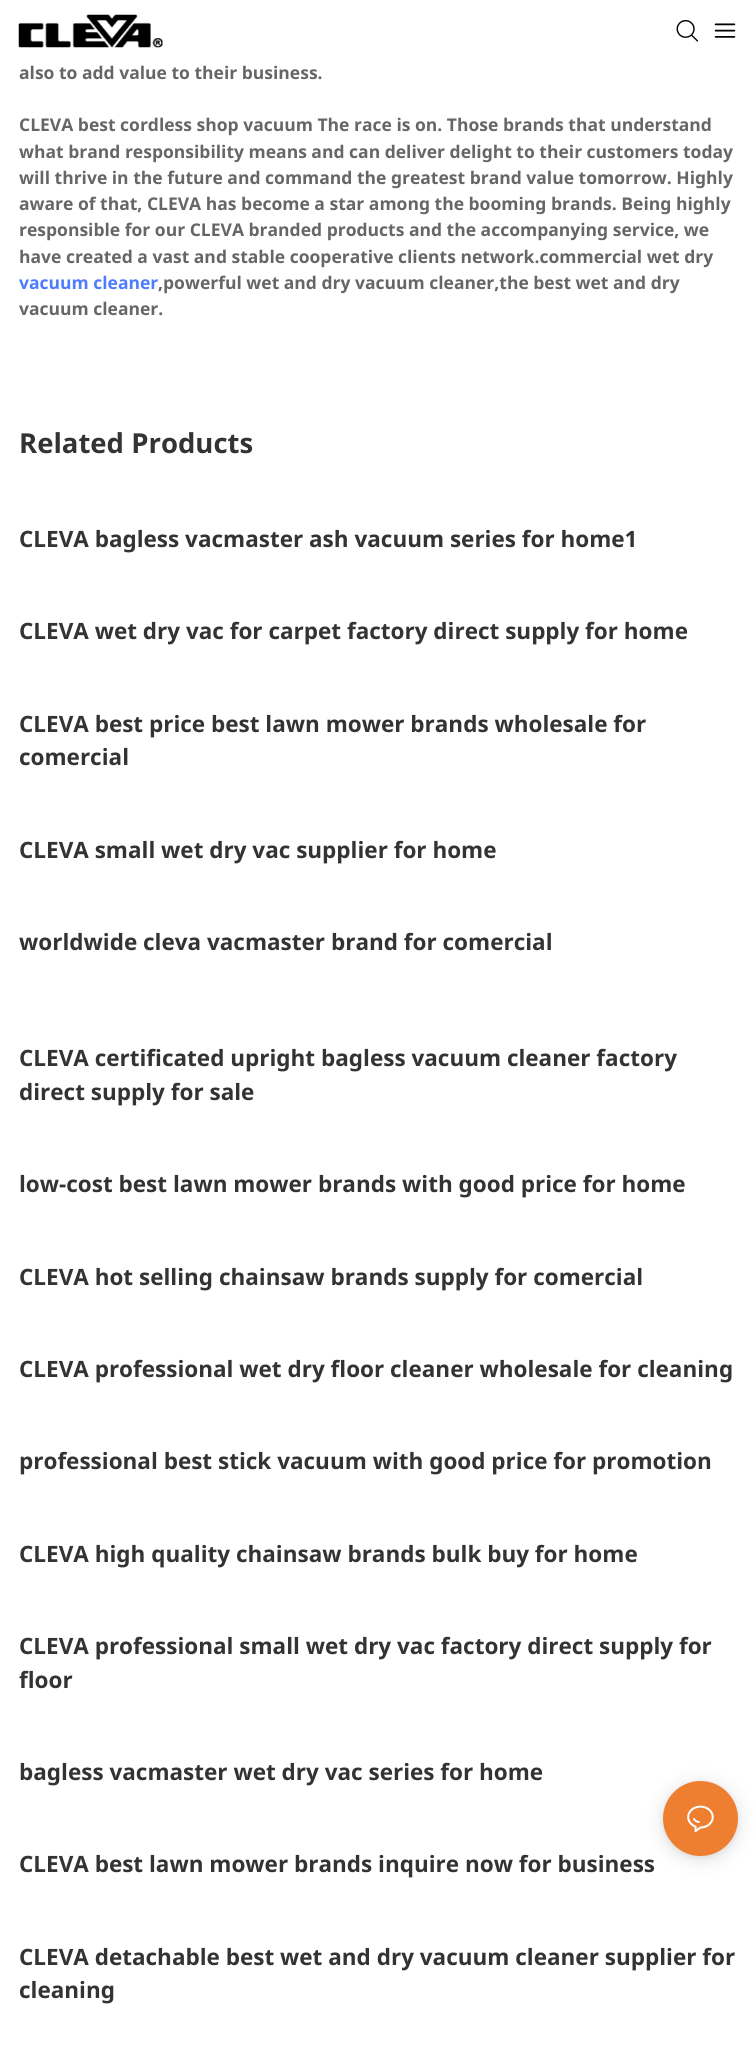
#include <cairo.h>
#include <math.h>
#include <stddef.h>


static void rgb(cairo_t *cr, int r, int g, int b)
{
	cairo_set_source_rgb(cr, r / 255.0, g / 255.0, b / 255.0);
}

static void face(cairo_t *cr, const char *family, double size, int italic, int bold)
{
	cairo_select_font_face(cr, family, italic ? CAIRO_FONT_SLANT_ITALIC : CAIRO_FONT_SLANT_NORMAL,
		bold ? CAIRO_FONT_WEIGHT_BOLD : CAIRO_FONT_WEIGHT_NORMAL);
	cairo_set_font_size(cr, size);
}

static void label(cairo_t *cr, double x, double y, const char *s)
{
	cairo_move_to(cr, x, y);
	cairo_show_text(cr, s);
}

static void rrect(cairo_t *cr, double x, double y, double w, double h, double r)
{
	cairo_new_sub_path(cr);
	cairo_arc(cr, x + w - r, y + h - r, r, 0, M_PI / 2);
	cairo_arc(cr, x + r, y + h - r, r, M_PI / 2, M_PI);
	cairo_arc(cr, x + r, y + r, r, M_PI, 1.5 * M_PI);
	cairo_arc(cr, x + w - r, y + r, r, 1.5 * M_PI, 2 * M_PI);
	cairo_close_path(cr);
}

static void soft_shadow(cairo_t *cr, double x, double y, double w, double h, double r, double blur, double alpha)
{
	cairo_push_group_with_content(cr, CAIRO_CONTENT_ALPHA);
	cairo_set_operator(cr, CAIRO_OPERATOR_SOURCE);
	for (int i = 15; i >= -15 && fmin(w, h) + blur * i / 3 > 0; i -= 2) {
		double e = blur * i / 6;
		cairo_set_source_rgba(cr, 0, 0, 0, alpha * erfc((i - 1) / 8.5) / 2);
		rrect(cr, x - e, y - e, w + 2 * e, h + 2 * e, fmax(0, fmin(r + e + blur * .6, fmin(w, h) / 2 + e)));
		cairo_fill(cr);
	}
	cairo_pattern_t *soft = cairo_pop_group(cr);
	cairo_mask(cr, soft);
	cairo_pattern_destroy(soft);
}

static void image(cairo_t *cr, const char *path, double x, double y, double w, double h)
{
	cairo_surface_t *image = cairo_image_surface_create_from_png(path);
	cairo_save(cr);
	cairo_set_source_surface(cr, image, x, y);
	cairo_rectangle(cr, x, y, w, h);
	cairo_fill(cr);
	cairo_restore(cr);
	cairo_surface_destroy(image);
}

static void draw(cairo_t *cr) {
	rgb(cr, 255, 255, 255);
	cairo_paint(cr);
	image(cr, "image0.png", 18, 14, 145, 34);
	image(cr, "image1.png", 676, 20, 23, 22);
	image(cr, "image2.png", 714, 23, 22, 15);
	face(cr, "Noto Sans", 17.5, 0, 1);
	rgb(cr, 102, 102, 102);
	label(cr, 19, 79, "also to add value to their business.");
	label(cr, 19, 131, "CLEVA best cordless shop vacuum The race is on. Those brands that understand");
	label(cr, 19, 158, "what brand responsibility means and can deliver delight to their customers today");
	label(cr, 19, 184, "will thrive in the future and command the greatest brand value tomorrow. Highly");
	label(cr, 19, 210, "aware of that, CLEVA has become a star among the booming brands. Being highly");
	label(cr, 19, 236, "responsible for our CLEVA branded products and the accompanying service, we");
	label(cr, 19, 263, "have created a vast and stable cooperative clients network.commercial wet dry");
	rgb(cr, 77, 124, 254);
	label(cr, 19, 289, "vacuum cleaner");
	rgb(cr, 102, 102, 102);
	label(cr, 158, 289, ",powerful wet and dry vacuum cleaner,the best wet and dry");
	label(cr, 19, 315, "vacuum cleaner.");
	face(cr, "Noto Sans", 27.5, 0, 1);
	rgb(cr, 51, 51, 51);
	label(cr, 19, 453, "Related Products");
	face(cr, "Noto Sans", 22.5, 0, 1);
	label(cr, 19, 547, "CLEVA bagless vacmaster ash vacuum series for home1");
	label(cr, 19, 639, "CLEVA wet dry vac for carpet factory direct supply for home");
	label(cr, 19, 732, "CLEVA best price best lawn mower brands wholesale for");
	label(cr, 19, 765, "comercial");
	label(cr, 19, 858, "CLEVA small wet dry vac supplier for home");
	label(cr, 19, 950, "worldwide cleva vacmaster brand for comercial");
	label(cr, 19, 1066, "CLEVA certificated upright bagless vacuum cleaner factory");
	label(cr, 19, 1100, "direct supply for sale");
	label(cr, 19, 1192, "low-cost best lawn mower brands with good price for home");
	label(cr, 19, 1285, "CLEVA hot selling chainsaw brands supply for comercial");
	label(cr, 19, 1377, "CLEVA professional wet dry floor cleaner wholesale for cleaning");
	label(cr, 19, 1469, "professional best stick vacuum with good price for promotion");
	label(cr, 19, 1562, "CLEVA high quality chainsaw brands bulk buy for home");
	label(cr, 19, 1654, "CLEVA professional small wet dry vac factory direct supply for");
	label(cr, 19, 1688, "floor");
	label(cr, 19, 1780, "bagless vacmaster wet dry vac series for home");
	label(cr, 19, 1872, "CLEVA best lawn mower brands inquire now for business");
	label(cr, 19, 1965, "CLEVA detachable best wet and dry vacuum cleaner supplier for");
	label(cr, 19, 1998, "cleaning");
	rgb(cr, 0, 0, 0);
	soft_shadow(cr, 663, 1784, 75, 75, 37.5, 10, 0.12);
	soft_shadow(cr, 663, 1783, 75, 75, 37.5, 2.5, 0.06);
	rgb(cr, 238, 127, 48);
	cairo_arc(cr, 700.5, 1818.5, 37.5, 0, 2 * M_PI);
	cairo_fill(cr);
	image(cr, "image3.png", 687, 1805, 27, 28);
}

int main(void) {
	cairo_surface_t *surface = cairo_image_surface_create(CAIRO_FORMAT_RGB24, 756, 2062);
	cairo_t *cr = cairo_create(surface);
	cairo_font_options_t *options = cairo_font_options_create();
	cairo_font_options_set_hint_metrics(options, CAIRO_HINT_METRICS_OFF);
	cairo_font_options_set_hint_style(options, CAIRO_HINT_STYLE_NONE);
	cairo_set_font_options(cr, options);
	cairo_set_miter_limit(cr, 4);
	draw(cr);
	cairo_surface_write_to_png(surface, "render.png");
	cairo_font_options_destroy(options);
	cairo_destroy(cr);
	cairo_surface_destroy(surface);
	return 0;
}
